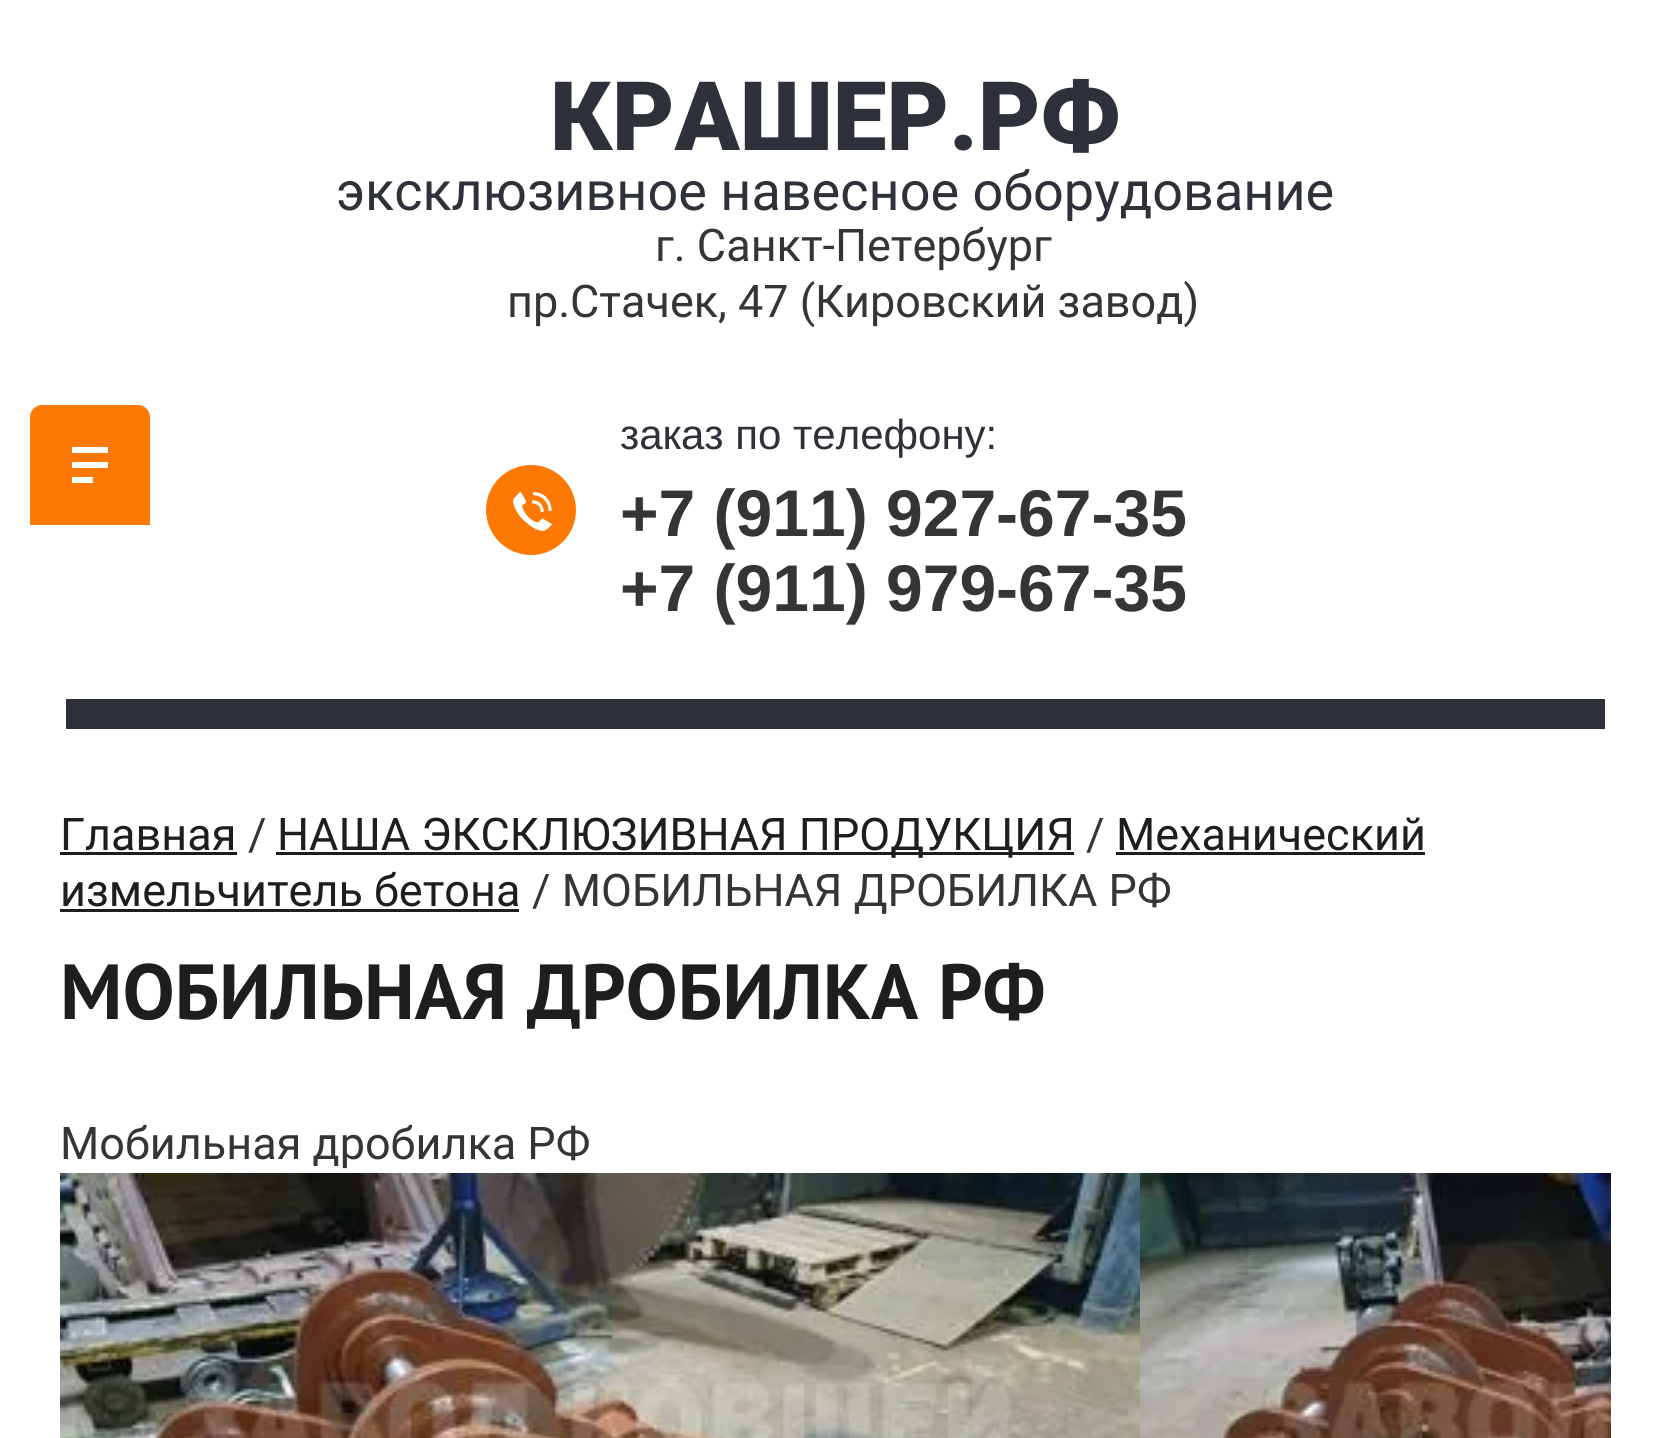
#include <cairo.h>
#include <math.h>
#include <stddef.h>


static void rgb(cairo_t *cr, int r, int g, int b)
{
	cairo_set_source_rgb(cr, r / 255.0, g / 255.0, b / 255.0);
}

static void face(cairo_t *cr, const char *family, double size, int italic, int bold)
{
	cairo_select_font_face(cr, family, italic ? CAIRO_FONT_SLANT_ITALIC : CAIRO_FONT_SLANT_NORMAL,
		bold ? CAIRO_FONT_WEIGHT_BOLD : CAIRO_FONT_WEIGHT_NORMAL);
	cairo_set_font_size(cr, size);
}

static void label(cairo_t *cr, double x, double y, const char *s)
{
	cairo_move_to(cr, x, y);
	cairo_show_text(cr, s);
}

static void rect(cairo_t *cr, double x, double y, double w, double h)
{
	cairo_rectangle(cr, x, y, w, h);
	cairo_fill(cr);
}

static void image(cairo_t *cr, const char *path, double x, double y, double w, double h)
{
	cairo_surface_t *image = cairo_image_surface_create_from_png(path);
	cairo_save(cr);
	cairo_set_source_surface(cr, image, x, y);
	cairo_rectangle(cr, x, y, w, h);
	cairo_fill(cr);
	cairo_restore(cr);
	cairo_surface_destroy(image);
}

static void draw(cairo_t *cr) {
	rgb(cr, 255, 255, 255);
	cairo_paint(cr);
	rgb(cr, 254, 121, 3);
	cairo_new_path(cr);
	cairo_move_to(cr, 42, 405);
	cairo_line_to(cr, 138, 405);
	cairo_curve_to(cr, 144.5, 405, 150, 410.5, 150, 417);
	cairo_line_to(cr, 150, 525);
	cairo_line_to(cr, 30, 525);
	cairo_line_to(cr, 30, 417);
	cairo_curve_to(cr, 30, 410.5, 35.5, 405, 42, 405);
	cairo_close_path(cr);
	cairo_fill(cr);
	rgb(cr, 255, 255, 255);
	cairo_new_path(cr);
	cairo_move_to(cr, 72, 447);
	cairo_line_to(cr, 72, 453);
	cairo_line_to(cr, 108, 453);
	cairo_line_to(cr, 108, 447);
	cairo_close_path(cr);
	cairo_move_to(cr, 72, 468);
	cairo_line_to(cr, 108, 468);
	cairo_line_to(cr, 108, 462);
	cairo_line_to(cr, 72, 462);
	cairo_close_path(cr);
	cairo_move_to(cr, 72, 483);
	cairo_line_to(cr, 93, 483);
	cairo_line_to(cr, 93, 477);
	cairo_line_to(cr, 72, 477);
	cairo_close_path(cr);
	cairo_fill(cr);
	face(cr, "Roboto Black", 96, 0, 0);
	rgb(cr, 46, 49, 58);
	label(cr, 550, 150, "КРАШЕР.РФ");
	face(cr, "Roboto", 54, 0, 0);
	label(cr, 336, 210, "эксклюзивное навесное оборудование");
	face(cr, "Roboto", 45, 0, 0);
	rgb(cr, 53, 53, 53);
	label(cr, 655, 261, "г. Санкт-Петербург");
	label(cr, 507, 317, "пр.Стачек, 47 (Кировский завод)");
	face(cr, "Liberation Sans", 42, 0, 0);
	rgb(cr, 46, 49, 58);
	label(cr, 620, 449, "заказ по телефону:");
	rgb(cr, 254, 121, 3);
	cairo_new_path(cr);
	cairo_arc(cr, 531, 510, 45, 0, 2 * M_PI);
	cairo_fill(cr);
	image(cr, "image0.png", 513, 492, 39, 39);
	face(cr, "Liberation Sans", 66, 0, 1);
	rgb(cr, 53, 53, 53);
	label(cr, 620, 536, "+7 (911) 927-67-35");
	label(cr, 620, 611, "+7 (911) 979-67-35");
	rgb(cr, 46, 49, 58);
	rect(cr, 66, 699, 1539, 30);
	face(cr, "Roboto", 45, 0, 0);
	rgb(cr, 30, 30, 30);
	label(cr, 60, 850, "Главная");
	rect(cr, 60, 852, 177, 3);
	rgb(cr, 53, 53, 53);
	label(cr, 248, 850, "/");
	rgb(cr, 30, 30, 30);
	rect(cr, 276, 852, 798, 3);
	label(cr, 277, 850, "НАША ЭКСКЛЮЗИВНАЯ ПРОДУКЦИЯ");
	rgb(cr, 53, 53, 53);
	label(cr, 1086, 850, "/");
	rgb(cr, 30, 30, 30);
	label(cr, 1116, 850, "Механический");
	rect(cr, 1116, 852, 309, 3);
	label(cr, 60, 906, "измельчитель бетона");
	rect(cr, 60, 909, 459, 3);
	rgb(cr, 53, 53, 53);
	label(cr, 532, 906, "/ МОБИЛЬНАЯ ДРОБИЛКА РФ");
	face(cr, "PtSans", 78, 0, 1);
	rgb(cr, 30, 30, 30);
	label(cr, 60, 1019, "МОБИЛЬНАЯ ДРОБИЛКА РФ");
	face(cr, "Roboto", 45, 0, 0);
	rgb(cr, 53, 53, 53);
	label(cr, 60, 1159, "Мобильная дробилка РФ");
	image(cr, "image1.png", 60, 1173, 1080, 265);
	image(cr, "image2.png", 1140, 1173, 471, 265);
}

int main(void) {
	cairo_surface_t *surface = cairo_image_surface_create(CAIRO_FORMAT_RGB24, 1671, 1438);
	cairo_t *cr = cairo_create(surface);
	cairo_font_options_t *options = cairo_font_options_create();
	cairo_font_options_set_hint_metrics(options, CAIRO_HINT_METRICS_OFF);
	cairo_font_options_set_hint_style(options, CAIRO_HINT_STYLE_NONE);
	cairo_set_font_options(cr, options);
	cairo_set_miter_limit(cr, 4);
	draw(cr);
	cairo_surface_write_to_png(surface, "render.png");
	cairo_font_options_destroy(options);
	cairo_destroy(cr);
	cairo_surface_destroy(surface);
	return 0;
}
